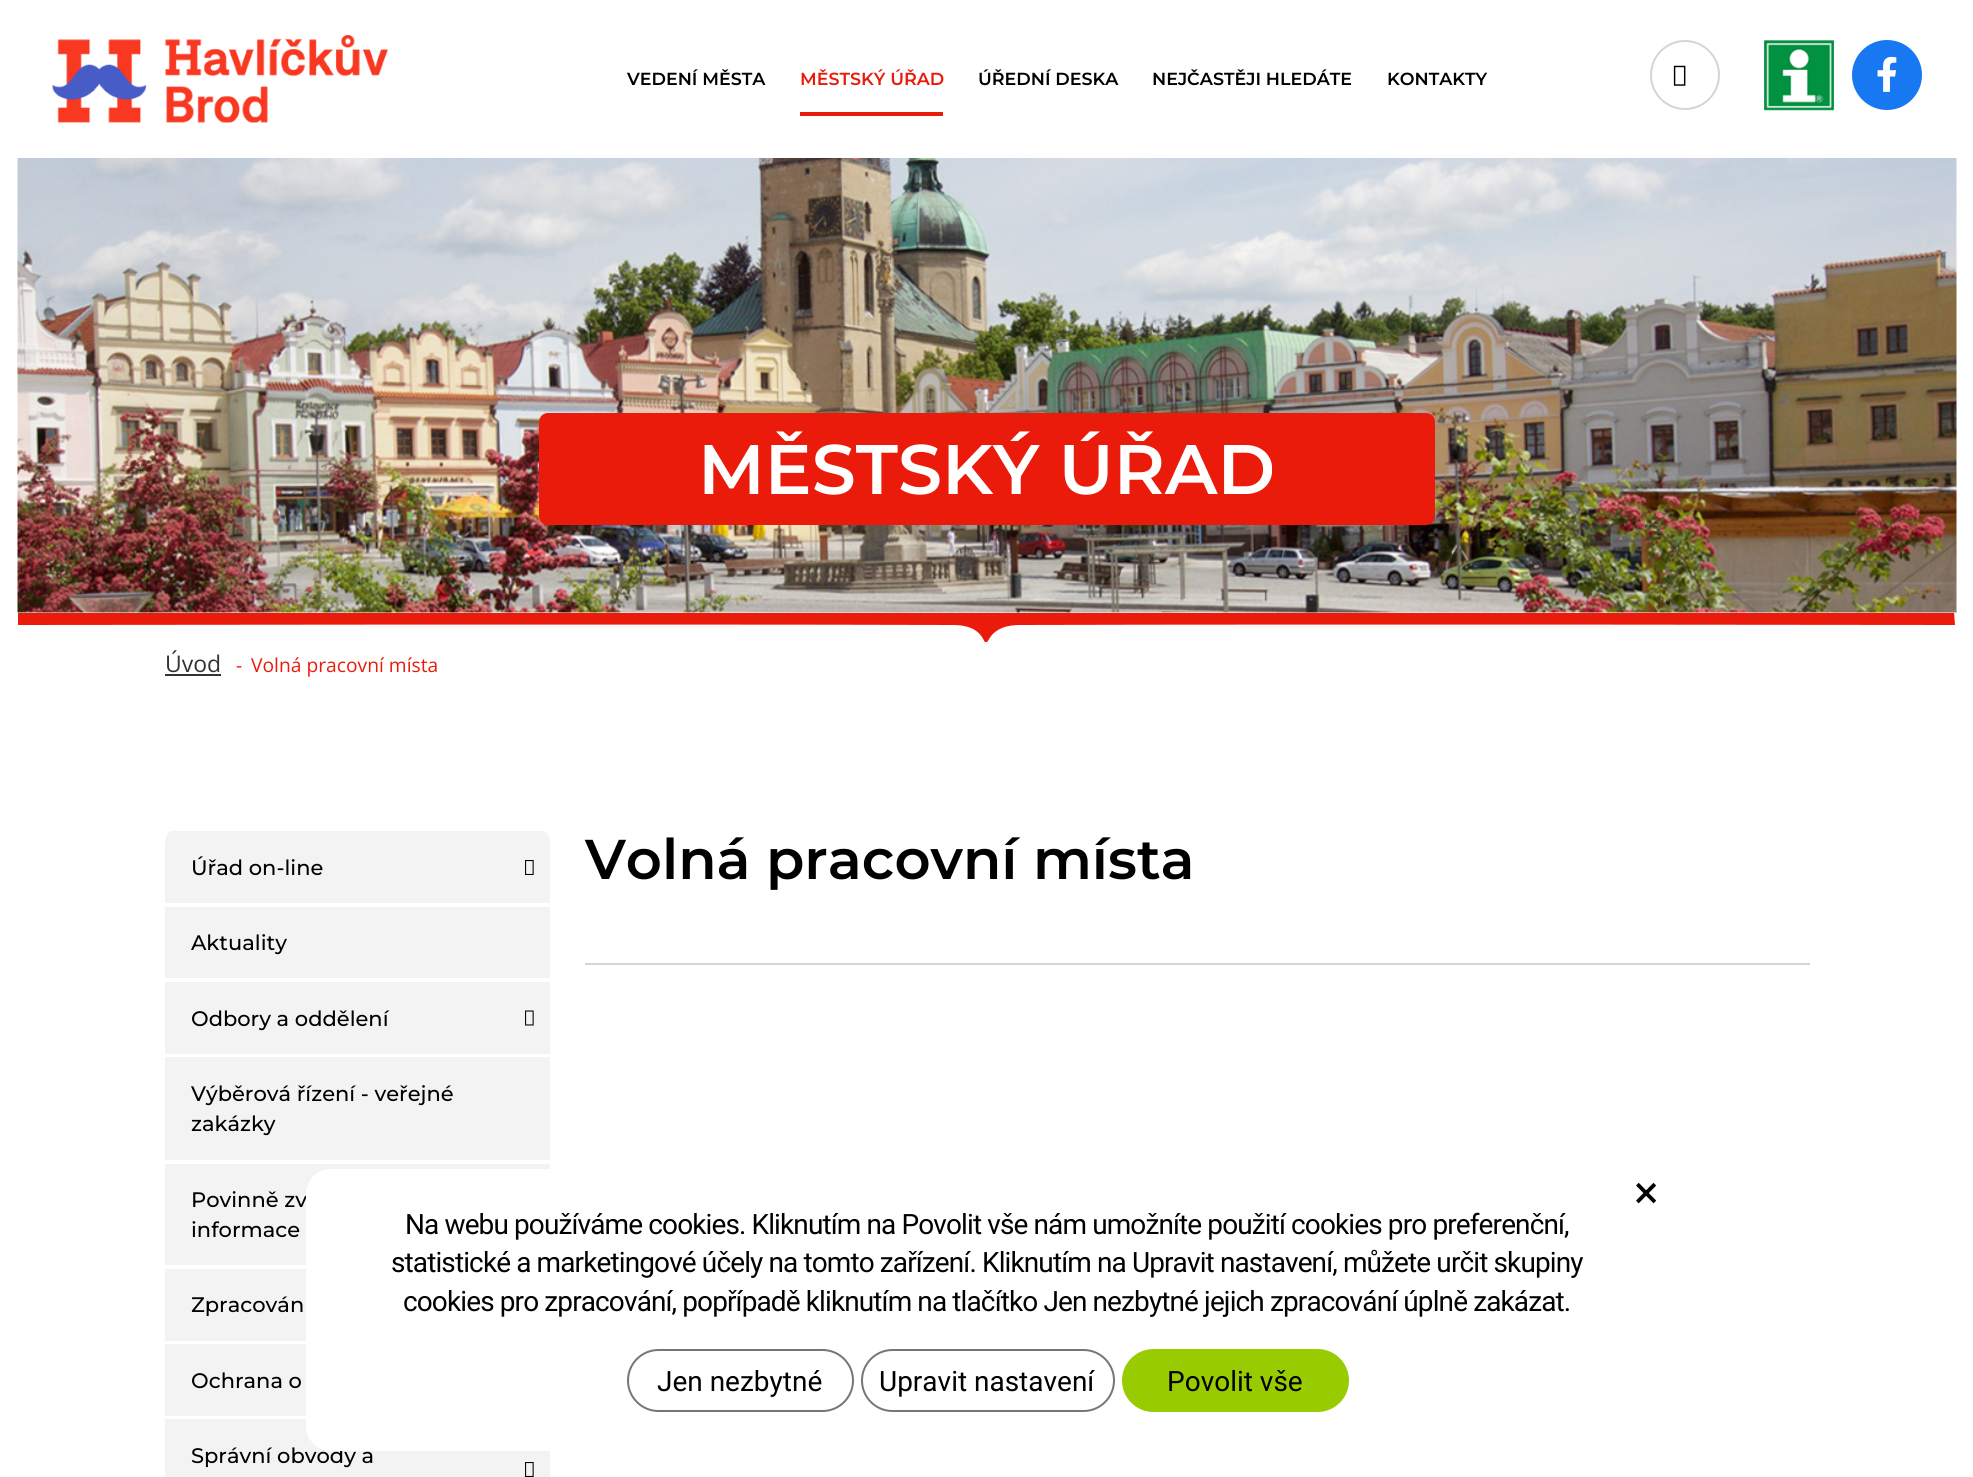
#include <cairo.h>
#include <math.h>
#include <stddef.h>


static void rgb(cairo_t *cr, int r, int g, int b)
{
	cairo_set_source_rgb(cr, r / 255.0, g / 255.0, b / 255.0);
}

static void face(cairo_t *cr, const char *family, double size, int italic, int bold)
{
	cairo_select_font_face(cr, family, italic ? CAIRO_FONT_SLANT_ITALIC : CAIRO_FONT_SLANT_NORMAL,
		bold ? CAIRO_FONT_WEIGHT_BOLD : CAIRO_FONT_WEIGHT_NORMAL);
	cairo_set_font_size(cr, size);
}

static void label(cairo_t *cr, double x, double y, const char *s)
{
	cairo_move_to(cr, x, y);
	cairo_show_text(cr, s);
}

static void tracked(cairo_t *cr, double x, double y, const char *s, double letter, double word)
{
	cairo_move_to(cr, x, y);
	while (*s) {
		char ch[5] = {0};
		int n = 0;
		do ch[n++] = *s++; while ((*s & 0xC0) == 0x80);
		cairo_show_text(cr, ch);
		cairo_rel_move_to(cr, letter + word * (*ch == ' '), 0);
	}
}

static void rect(cairo_t *cr, double x, double y, double w, double h)
{
	cairo_rectangle(cr, x, y, w, h);
	cairo_fill(cr);
}

static void rrect(cairo_t *cr, double x, double y, double w, double h, double r)
{
	cairo_new_sub_path(cr);
	cairo_arc(cr, x + w - r, y + h - r, r, 0, M_PI / 2);
	cairo_arc(cr, x + r, y + h - r, r, M_PI / 2, M_PI);
	cairo_arc(cr, x + r, y + r, r, M_PI, 1.5 * M_PI);
	cairo_arc(cr, x + w - r, y + r, r, 1.5 * M_PI, 2 * M_PI);
	cairo_close_path(cr);
}

static void image(cairo_t *cr, const char *path, double x, double y, double w, double h)
{
	cairo_surface_t *image = cairo_image_surface_create_from_png(path);
	cairo_save(cr);
	cairo_set_source_surface(cr, image, x, y);
	cairo_rectangle(cr, x, y, w, h);
	cairo_fill(cr);
	cairo_restore(cr);
	cairo_surface_destroy(image);
}

static void draw(cairo_t *cr) {
	rgb(cr, 255, 255, 255);
	cairo_paint(cr);
	image(cr, "image0.png", 52, 35, 336, 88);
	cairo_arc(cr, 1685, 75, 34, 0, 2 * M_PI);
	rgb(cr, 213, 213, 213);
	cairo_stroke(cr);
	image(cr, "image1.png", 1673, 65, 13, 21);
	image(cr, "image2.png", 1764, 40, 70, 71);
	rgb(cr, 23, 120, 242);
	cairo_arc(cr, 1887, 75, 35, 0, 2 * M_PI);
	cairo_fill(cr);
	image(cr, "image3.png", 1877, 56, 20, 36);
	face(cr, "Montserrat Thin", 17.5, 0, 0);
	rgb(cr, 0, 0, 0);
	label(cr, 627, 85, "VEDENÍ MĚSTA");
	rgb(cr, 234, 27, 10);
	label(cr, 800, 85, "MĚSTSKÝ ÚŘAD");
	rect(cr, 800, 112, 143, 4);
	rgb(cr, 0, 0, 0);
	label(cr, 978, 85, "ÚŘEDNÍ DESKA");
	label(cr, 1152, 85, "NEJČASTĚJI HLEDÁTE");
	label(cr, 1387, 85, "KONTAKTY");
	image(cr, "image4.png", 17, 158, 1940, 455);
	rgb(cr, 234, 27, 10);
	rrect(cr, 539, 413, 896, 112, 9);
	cairo_fill(cr);
	face(cr, "Montserrat Thin", 70, 0, 0);
	rgb(cr, 255, 255, 255);
	label(cr, 698, 494, "MĚSTSKÝ ÚŘAD");
	cairo_save(cr);
	cairo_rectangle(cr, 18, 613, 1939, 29);
	cairo_clip(cr);
	rgb(cr, 234, 27, 10);
	cairo_set_fill_rule(cr, CAIRO_FILL_RULE_EVEN_ODD);
	cairo_new_path(cr);
	cairo_move_to(cr, 18, 612);
	cairo_line_to(cr, 1954, 612);
	cairo_line_to(cr, 1955, 625);
	cairo_curve_to(cr, 1955, 625, 1331, 624, 1020, 625);
	cairo_curve_to(cr, 990, 625, 989, 643, 986, 643);
	cairo_curve_to(cr, 983, 643, 983, 625, 953, 625);
	cairo_curve_to(cr, 654, 624, 18, 625, 18, 625);
	cairo_close_path(cr);
	cairo_fill(cr);
	cairo_restore(cr);
	face(cr, "Open Sans", 23, 0, 0);
	rgb(cr, 51, 51, 51);
	label(cr, 165, 672, "Úvod");
	rect(cr, 165, 674, 56, 2);
	face(cr, "Open Sans", 19.25, 0, 0);
	rgb(cr, 234, 27, 10);
	label(cr, 236, 672, "-");
	label(cr, 251, 672, "Volná pracovní místa");
	face(cr, "Montserrat Thin", 56, 0, 0);
	rgb(cr, 0, 0, 0);
	label(cr, 585, 879, "Volná pracovní místa");
	rgb(cr, 213, 213, 213);
	rect(cr, 585, 963, 1225, 2);
	cairo_save(cr);
	rrect(cr, 165, 828, 385, 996, 14);
	cairo_clip(cr);
	rgb(cr, 243, 243, 243);
	rect(cr, 165, 831, 385, 72);
	cairo_restore(cr);
	face(cr, "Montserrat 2 Thin", 21, 0, 0);
	rgb(cr, 0, 0, 0);
	label(cr, 191, 875, "Úřad on-line");
	image(cr, "image5.png", 525, 860, 9, 15);
	rgb(cr, 243, 243, 243);
	rect(cr, 165, 907, 385, 71);
	rgb(cr, 0, 0, 0);
	label(cr, 191, 950, "Aktuality");
	rgb(cr, 243, 243, 243);
	rect(cr, 165, 982, 385, 72);
	rgb(cr, 0, 0, 0);
	label(cr, 191, 1026, "Odbory a oddělení");
	image(cr, "image6.png", 525, 1010, 9, 16);
	rgb(cr, 243, 243, 243);
	rect(cr, 165, 1057, 385, 103);
	rgb(cr, 0, 0, 0);
	label(cr, 191, 1101, "Výběrová řízení - veřejné");
	label(cr, 191, 1131, "zakázky");
	rgb(cr, 243, 243, 243);
	rect(cr, 165, 1164, 385, 101);
	rgb(cr, 0, 0, 0);
	label(cr, 191, 1207, "Povinně zv");
	label(cr, 191, 1237, "informace");
	rgb(cr, 243, 243, 243);
	rect(cr, 165, 1269, 141, 72);
	rgb(cr, 0, 0, 0);
	label(cr, 191, 1312, "Zpracován");
	rgb(cr, 243, 243, 243);
	rect(cr, 165, 1344, 141, 72);
	rgb(cr, 0, 0, 0);
	label(cr, 191, 1388, "Ochrana o");
	rgb(cr, 243, 243, 243);
	rect(cr, 165, 1419, 385, 58);
	rgb(cr, 0, 0, 0);
	label(cr, 191, 1463, "Správní obvody a");
	image(cr, "image5.png", 525, 1462, 9, 15);
	rgb(cr, 255, 255, 255);
	rrect(cr, 306, 1169, 1364, 282, 25);
	cairo_fill(cr);
	face(cr, "Roboto", 46, 0, 0);
	rgb(cr, 0, 0, 0);
	label(cr, 1634, 1208, "×");
	face(cr, "Roboto", 28, 0, 0);
	tracked(cr, 405, 1234, "Na webu používáme cookies. Kliknutím na Povolit vše nám umožníte použití cookies pro preferenční,", -0.88, 0);
	tracked(cr, 391, 1272, "statistické a marketingové účely na tomto zařízení. Kliknutím na Upravit nastavení, můžete určit skupiny", -0.88, 0);
	tracked(cr, 403, 1311, "cookies pro zpracování, popřípadě kliknutím na tlačítko Jen nezbytné jejich zpracování úplně zakázat.", -0.88, 0);
	rrect(cr, 628, 1350, 225, 61, 30.5);
	rgb(cr, 118, 118, 118);
	cairo_stroke(cr);
	rgb(cr, 0, 0, 0);
	label(cr, 657, 1391, "Jen nezbytné");
	rrect(cr, 862, 1350, 252, 61, 30.5);
	rgb(cr, 118, 118, 118);
	cairo_stroke(cr);
	rgb(cr, 0, 0, 0);
	label(cr, 879, 1391, "Upravit nastavení");
	rgb(cr, 153, 204, 0);
	rrect(cr, 1123, 1350, 225, 61, 30.5);
	cairo_fill_preserve(cr);
	cairo_stroke(cr);
	rgb(cr, 0, 0, 0);
	label(cr, 1167, 1391, "Povolit vše");
}

int main(void) {
	cairo_surface_t *surface = cairo_image_surface_create(CAIRO_FORMAT_RGB24, 1973, 1477);
	cairo_t *cr = cairo_create(surface);
	cairo_font_options_t *options = cairo_font_options_create();
	cairo_font_options_set_hint_metrics(options, CAIRO_HINT_METRICS_OFF);
	cairo_font_options_set_hint_style(options, CAIRO_HINT_STYLE_NONE);
	cairo_set_font_options(cr, options);
	cairo_set_miter_limit(cr, 4);
	draw(cr);
	cairo_surface_write_to_png(surface, "render.png");
	cairo_font_options_destroy(options);
	cairo_destroy(cr);
	cairo_surface_destroy(surface);
	return 0;
}
